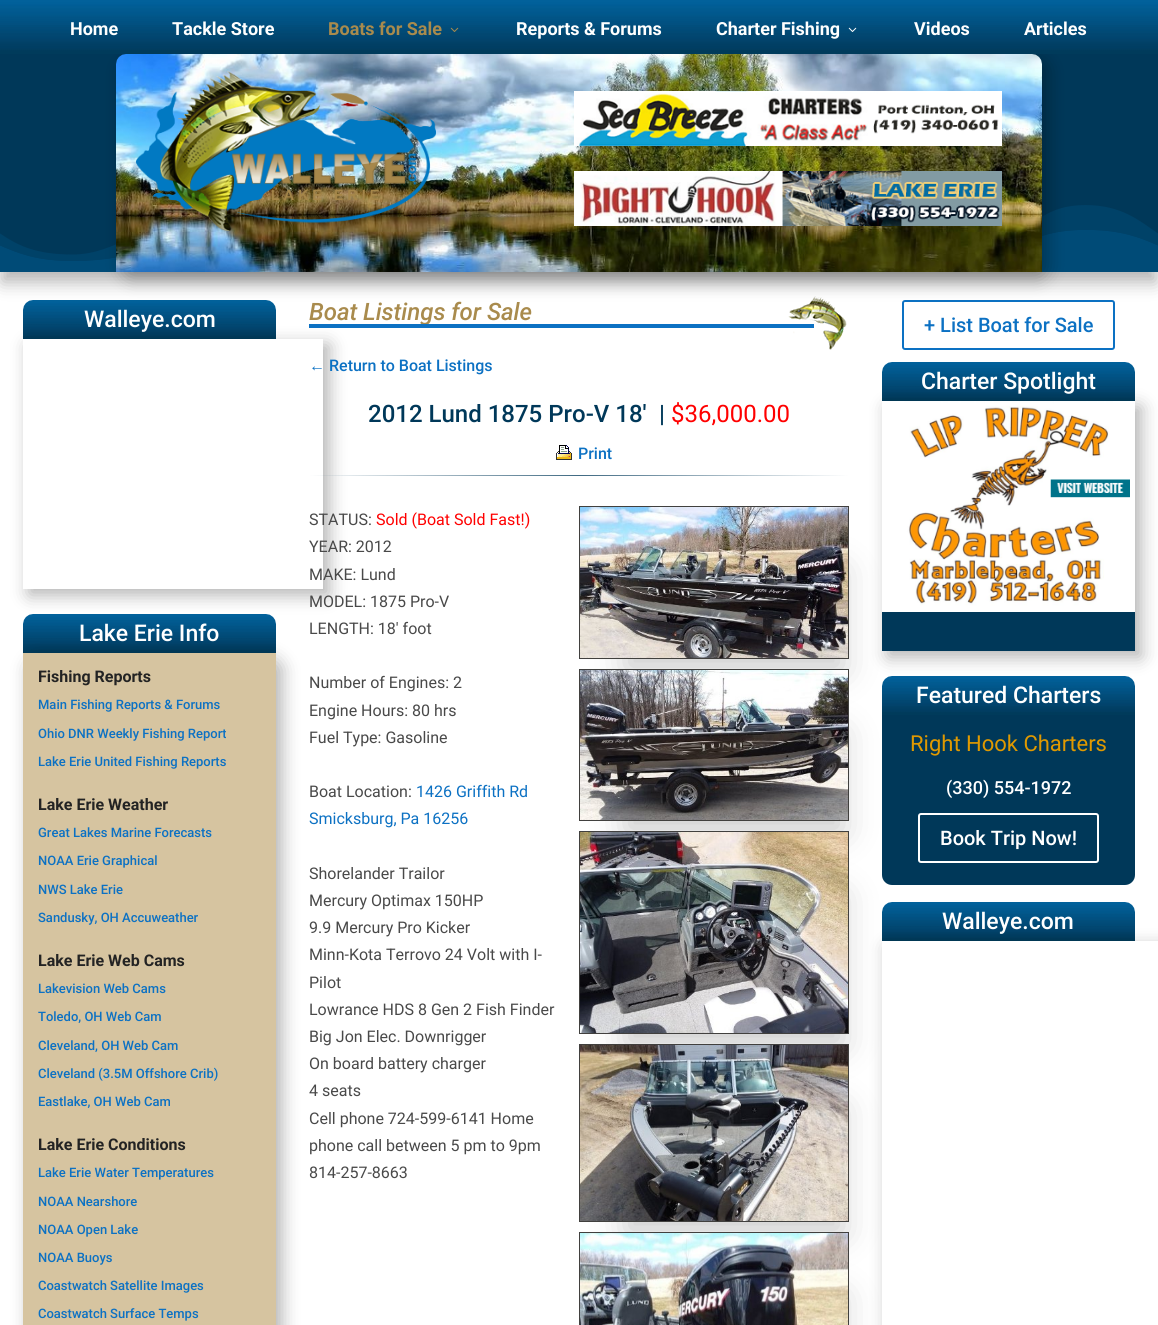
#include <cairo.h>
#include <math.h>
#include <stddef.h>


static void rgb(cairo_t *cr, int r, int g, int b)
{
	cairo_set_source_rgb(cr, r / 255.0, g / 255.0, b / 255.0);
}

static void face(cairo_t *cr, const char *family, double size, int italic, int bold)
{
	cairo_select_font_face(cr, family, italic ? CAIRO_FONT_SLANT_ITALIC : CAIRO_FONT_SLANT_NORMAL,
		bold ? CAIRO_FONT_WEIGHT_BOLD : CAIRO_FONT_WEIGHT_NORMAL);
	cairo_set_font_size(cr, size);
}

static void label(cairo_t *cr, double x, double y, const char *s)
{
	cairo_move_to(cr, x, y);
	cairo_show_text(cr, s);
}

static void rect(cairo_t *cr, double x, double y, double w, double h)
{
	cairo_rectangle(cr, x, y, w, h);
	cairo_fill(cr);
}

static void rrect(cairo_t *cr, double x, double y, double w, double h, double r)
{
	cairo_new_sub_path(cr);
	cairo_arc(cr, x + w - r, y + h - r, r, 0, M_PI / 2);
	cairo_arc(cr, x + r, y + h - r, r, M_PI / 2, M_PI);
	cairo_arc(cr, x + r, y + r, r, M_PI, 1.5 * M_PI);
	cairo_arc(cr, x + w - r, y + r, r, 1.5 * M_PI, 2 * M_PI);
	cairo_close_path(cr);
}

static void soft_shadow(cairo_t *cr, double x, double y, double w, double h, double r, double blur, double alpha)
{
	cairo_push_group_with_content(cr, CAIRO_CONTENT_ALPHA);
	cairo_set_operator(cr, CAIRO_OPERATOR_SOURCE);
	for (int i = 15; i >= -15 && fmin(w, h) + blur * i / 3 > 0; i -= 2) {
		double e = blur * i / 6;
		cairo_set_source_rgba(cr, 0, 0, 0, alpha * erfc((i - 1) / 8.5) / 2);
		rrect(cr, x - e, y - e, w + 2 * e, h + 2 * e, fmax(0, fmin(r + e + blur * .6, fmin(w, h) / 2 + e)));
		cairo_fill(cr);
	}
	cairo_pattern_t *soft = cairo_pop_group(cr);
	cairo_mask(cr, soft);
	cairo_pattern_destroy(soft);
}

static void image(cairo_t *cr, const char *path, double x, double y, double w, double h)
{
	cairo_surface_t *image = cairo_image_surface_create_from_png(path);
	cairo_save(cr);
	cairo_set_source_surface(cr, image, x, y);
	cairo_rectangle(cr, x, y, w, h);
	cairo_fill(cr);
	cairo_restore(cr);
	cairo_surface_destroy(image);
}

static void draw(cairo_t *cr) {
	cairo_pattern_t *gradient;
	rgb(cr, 255, 255, 255);
	cairo_paint(cr);
	image(cr, "image8.png", 23, 300, 253, 39);
	image(cr, "image10.png", 788, 296, 59, 54);
	rrect(cr, 903, 301, 211, 48, 2);
	rgb(cr, 12, 113, 195);
	cairo_stroke(cr);
	rgb(cr, 0, 0, 0);
	soft_shadow(cr, 2, 68, 1154, 214, 0, 9, 0.3);
	rgb(cr, 0, 56, 89);
	rect(cr, 0, 54, 1158, 207);
	image(cr, "image7.png", 0, 205, 1158, 67);
	rgb(cr, 0, 0, 0);
	soft_shadow(cr, 122, 60, 926, 218, 10, 9, 0.3);
	image(cr, "image0.png", 0, 0, 1158, 54);
	face(cr, "Roboto", 18, 0, 1);
	rgb(cr, 255, 255, 255);
	label(cr, 70, 35, "Home");
	label(cr, 172, 35, "Tackle Store");
	rgb(cr, 169, 139, 77);
	label(cr, 328, 35, "Boats for Sale");
	image(cr, "image1.png", 450, 27, 9, 5);
	rgb(cr, 255, 255, 255);
	label(cr, 516, 35, "Reports & Forums");
	label(cr, 716, 35, "Charter Fishing");
	image(cr, "image2.png", 848, 27, 9, 5);
	label(cr, 914, 35, "Videos");
	label(cr, 1024, 35, "Articles");
	image(cr, "image3.png", 116, 54, 926, 218);
	image(cr, "image4.png", 136, 71, 300, 160);
	image(cr, "image5.png", 574, 91, 428, 55);
	image(cr, "image6.png", 574, 171, 428, 55);
	face(cr, "Roboto Medium", 23, 0, 0);
	label(cr, 84, 327, "Walleye.com");
	cairo_save(cr);
	cairo_set_fill_rule(cr, CAIRO_FILL_RULE_EVEN_ODD);
	cairo_new_path(cr);
	cairo_move_to(cr, 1, 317);
	cairo_line_to(cr, 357, 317);
	cairo_line_to(cr, 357, 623);
	cairo_line_to(cr, 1, 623);
	cairo_close_path(cr);
	cairo_move_to(cr, 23, 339);
	cairo_line_to(cr, 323, 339);
	cairo_line_to(cr, 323, 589);
	cairo_line_to(cr, 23, 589);
	cairo_close_path(cr);
	cairo_clip(cr);
	rgb(cr, 0, 0, 0);
	soft_shadow(cr, 29, 345, 300, 250, 0, 9, 0.3);
	cairo_restore(cr);
	image(cr, "image9.png", 23, 614, 253, 39);
	label(cr, 79, 641, "Lake Erie Info");
	rgb(cr, 0, 0, 0);
	soft_shadow(cr, 29, 659, 253, 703, 10, 9, 0.3);
	rgb(cr, 214, 196, 160);
	rect(cr, 23, 653, 253, 672);
	face(cr, "Roboto", 16, 0, 1);
	rgb(cr, 35, 35, 35);
	label(cr, 38, 682, "Fishing Reports");
	face(cr, "Roboto Medium", 13, 0, 0);
	rgb(cr, 12, 113, 195);
	label(cr, 38, 709, "Main Fishing Reports & Forums");
	label(cr, 38, 738, "Ohio DNR Weekly Fishing Report");
	label(cr, 38, 766, "Lake Erie United Fishing Reports");
	face(cr, "Roboto", 16, 0, 1);
	rgb(cr, 35, 35, 35);
	label(cr, 38, 810, "Lake Erie Weather");
	face(cr, "Roboto Medium", 13, 0, 0);
	rgb(cr, 12, 113, 195);
	label(cr, 38, 837, "Great Lakes Marine Forecasts");
	label(cr, 38, 865, "NOAA Erie Graphical");
	label(cr, 38, 894, "NWS Lake Erie");
	label(cr, 38, 922, "Sandusky, OH Accuweather");
	face(cr, "Roboto", 16, 0, 1);
	rgb(cr, 35, 35, 35);
	label(cr, 38, 966, "Lake Erie Web Cams");
	face(cr, "Roboto Medium", 13, 0, 0);
	rgb(cr, 12, 113, 195);
	label(cr, 38, 993, "Lakevision Web Cams");
	label(cr, 38, 1021, "Toledo, OH Web Cam");
	label(cr, 38, 1050, "Cleveland, OH Web Cam");
	label(cr, 38, 1078, "Cleveland (3.5M Offshore Crib)");
	label(cr, 38, 1106, "Eastlake, OH Web Cam");
	face(cr, "Roboto", 16, 0, 1);
	rgb(cr, 35, 35, 35);
	label(cr, 38, 1150, "Lake Erie Conditions");
	face(cr, "Roboto Medium", 13, 0, 0);
	rgb(cr, 12, 113, 195);
	label(cr, 38, 1177, "Lake Erie Water Temperatures");
	label(cr, 38, 1206, "NOAA Nearshore");
	label(cr, 38, 1234, "NOAA Open Lake");
	label(cr, 38, 1262, "NOAA Buoys");
	label(cr, 38, 1290, "Coastwatch Satellite Images");
	label(cr, 38, 1318, "Coastwatch Surface Temps");
	face(cr, "Roboto Medium", 24, 1, 0);
	rgb(cr, 169, 139, 77);
	label(cr, 309, 320, "Boat Listings for Sale");
	rgb(cr, 12, 113, 195);
	rect(cr, 309, 324, 505, 4);
	face(cr, "Liberation Sans", 16, 0, 0);
	label(cr, 309, 371, "←");
	face(cr, "Roboto Medium", 16, 0, 0);
	label(cr, 329, 371, "Return to Boat Listings");
	face(cr, "Roboto Medium", 24, 0, 0);
	rgb(cr, 0, 56, 89);
	label(cr, 368, 422, "2012 Lund 1875 Pro-V 18'");
	label(cr, 659, 422, "|");
	face(cr, "Roboto", 24, 0, 0);
	rgb(cr, 255, 0, 0);
	label(cr, 671, 422, "$36,000.00");
	image(cr, "image11.png", 556, 445, 16, 15);
	face(cr, "Roboto Medium", 16, 0, 0);
	rgb(cr, 12, 113, 195);
	label(cr, 578, 459, "Print");
	gradient = cairo_pattern_create_linear(309, 476, 849, 476);
	cairo_pattern_add_color_stop_rgba(gradient, 0, 0, 0.22, 0.349, 0);
	cairo_pattern_add_color_stop_rgba(gradient, 0.5, 0, 0.22, 0.349, 0.75);
	cairo_pattern_add_color_stop_rgba(gradient, 1, 0, 0.22, 0.349, 0);
	cairo_set_source(cr, gradient);
	cairo_pattern_destroy(gradient);
	rect(cr, 309, 475, 540, 1);
	face(cr, "Roboto", 16, 0, 0);
	rgb(cr, 73, 73, 73);
	label(cr, 309, 525, "STATUS:");
	rgb(cr, 255, 0, 0);
	label(cr, 376, 525, "Sold (Boat Sold Fast!)");
	rgb(cr, 73, 73, 73);
	label(cr, 309, 552, "YEAR: 2012");
	label(cr, 309, 580, "MAKE: Lund");
	label(cr, 309, 607, "MODEL: 1875 Pro-V");
	label(cr, 309, 634, "LENGTH: 18' foot");
	label(cr, 309, 688, "Number of Engines: 2");
	label(cr, 309, 716, "Engine Hours: 80 hrs");
	label(cr, 309, 743, "Fuel Type: Gasoline");
	label(cr, 309, 797, "Boat Location:");
	rgb(cr, 12, 113, 195);
	label(cr, 416, 797, "1426 Griffith Rd");
	label(cr, 309, 824, "Smicksburg, Pa 16256");
	rgb(cr, 73, 73, 73);
	label(cr, 309, 879, "Shorelander Trailor");
	label(cr, 309, 906, "Mercury Optimax 150HP");
	label(cr, 309, 933, "9.9 Mercury Pro Kicker");
	label(cr, 309, 960, "Minn-Kota Terrovo 24 Volt with I-");
	label(cr, 309, 988, "Pilot");
	label(cr, 309, 1015, "Lowrance HDS 8 Gen 2 Fish Finder");
	label(cr, 309, 1042, "Big Jon Elec. Downrigger");
	label(cr, 309, 1069, "On board battery charger");
	label(cr, 309, 1096, "4 seats");
	label(cr, 309, 1124, "Cell phone 724-599-6141 Home");
	label(cr, 309, 1151, "phone call between 5 pm to 9pm");
	label(cr, 309, 1178, "814-257-8663");
	rgb(cr, 0, 0, 0);
	soft_shadow(cr, 625, 570, 218, 101, 0, 17, 0.2);
	cairo_rectangle(cr, 579.5, 506.5, 269, 152);
	rgb(cr, 65, 64, 62);
	cairo_set_line_width(cr, 1);
	cairo_stroke(cr);
	image(cr, "image12.png", 580, 507, 268, 151);
	rgb(cr, 0, 0, 0);
	soft_shadow(cr, 625, 733, 218, 100, 0, 17, 0.2);
	cairo_rectangle(cr, 579.5, 669.5, 269, 151);
	rgb(cr, 65, 64, 62);
	cairo_stroke(cr);
	image(cr, "image13.png", 580, 670, 268, 150);
	rgb(cr, 0, 0, 0);
	soft_shadow(cr, 625, 895, 218, 151, 0, 17, 0.2);
	cairo_rectangle(cr, 579.5, 831.5, 269, 202);
	rgb(cr, 65, 64, 62);
	cairo_stroke(cr);
	image(cr, "image14.png", 580, 832, 268, 201);
	rgb(cr, 0, 0, 0);
	soft_shadow(cr, 625, 1108, 218, 126, 0, 17, 0.2);
	cairo_rectangle(cr, 579.5, 1044.5, 269, 177);
	rgb(cr, 65, 64, 62);
	cairo_stroke(cr);
	image(cr, "image15.png", 580, 1045, 268, 176);
	rgb(cr, 0, 0, 0);
	soft_shadow(cr, 625, 1296, 218, 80, 0, 17, 0.2);
	cairo_rectangle(cr, 579.5, 1232.5, 269, 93);
	rgb(cr, 65, 64, 62);
	cairo_stroke(cr);
	image(cr, "image16.png", 580, 1233, 268, 92);
	face(cr, "Roboto Medium", 20, 0, 0);
	rgb(cr, 12, 113, 195);
	label(cr, 924, 332, "+ List Boat for Sale");
	image(cr, "image17.png", 882, 362, 253, 39);
	face(cr, "Roboto Medium", 23, 0, 0);
	rgb(cr, 255, 255, 255);
	label(cr, 921, 389, "Charter Spotlight");
	rgb(cr, 0, 0, 0);
	soft_shadow(cr, 888, 407, 253, 250, 0, 9, 0.3);
	rgb(cr, 0, 56, 89);
	rect(cr, 882, 612, 253, 39);
	image(cr, "image18.png", 882, 401, 253, 211);
	image(cr, "image19.png", 882, 676, 253, 39);
	rgb(cr, 255, 255, 255);
	label(cr, 916, 703, "Featured Charters");
	rgb(cr, 0, 56, 89);
	cairo_new_path(cr);
	cairo_move_to(cr, 882, 715);
	cairo_line_to(cr, 1135, 715);
	cairo_line_to(cr, 1135, 875);
	cairo_curve_to(cr, 1135, 880.5, 1130.5, 885, 1125, 885);
	cairo_line_to(cr, 892, 885);
	cairo_curve_to(cr, 886.5, 885, 882, 880.5, 882, 875);
	cairo_close_path(cr);
	cairo_fill(cr);
	face(cr, "Roboto", 22, 0, 0);
	rgb(cr, 224, 153, 0);
	label(cr, 910, 751, "Right Hook Charters");
	face(cr, "Roboto Medium", 18, 0, 0);
	rgb(cr, 255, 255, 255);
	label(cr, 946, 794, "(330) 554-1972");
	rrect(cr, 919, 814, 179, 48, 2);
	cairo_set_line_width(cr, 2);
	cairo_stroke(cr);
	face(cr, "Roboto Medium", 20, 0, 0);
	label(cr, 940, 845, "Book Trip Now!");
	image(cr, "image20.png", 882, 902, 253, 39);
	face(cr, "Roboto Medium", 23, 0, 0);
	label(cr, 942, 929, "Walleye.com");
	cairo_save(cr);
	cairo_set_fill_rule(cr, CAIRO_FILL_RULE_EVEN_ODD);
	cairo_new_path(cr);
	cairo_move_to(cr, 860, 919);
	cairo_line_to(cr, 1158, 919);
	cairo_line_to(cr, 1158, 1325);
	cairo_line_to(cr, 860, 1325);
	cairo_close_path(cr);
	cairo_move_to(cr, 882, 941);
	cairo_line_to(cr, 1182, 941);
	cairo_line_to(cr, 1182, 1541);
	cairo_line_to(cr, 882, 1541);
	cairo_close_path(cr);
	cairo_clip(cr);
	rgb(cr, 0, 0, 0);
	soft_shadow(cr, 888, 947, 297, 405, 0, 9, 0.3);
	cairo_restore(cr);
}

int main(void) {
	cairo_surface_t *surface = cairo_image_surface_create(CAIRO_FORMAT_RGB24, 1158, 1325);
	cairo_t *cr = cairo_create(surface);
	cairo_font_options_t *options = cairo_font_options_create();
	cairo_font_options_set_hint_metrics(options, CAIRO_HINT_METRICS_OFF);
	cairo_font_options_set_hint_style(options, CAIRO_HINT_STYLE_NONE);
	cairo_set_font_options(cr, options);
	cairo_set_miter_limit(cr, 4);
	draw(cr);
	cairo_surface_write_to_png(surface, "render.png");
	cairo_font_options_destroy(options);
	cairo_destroy(cr);
	cairo_surface_destroy(surface);
	return 0;
}
